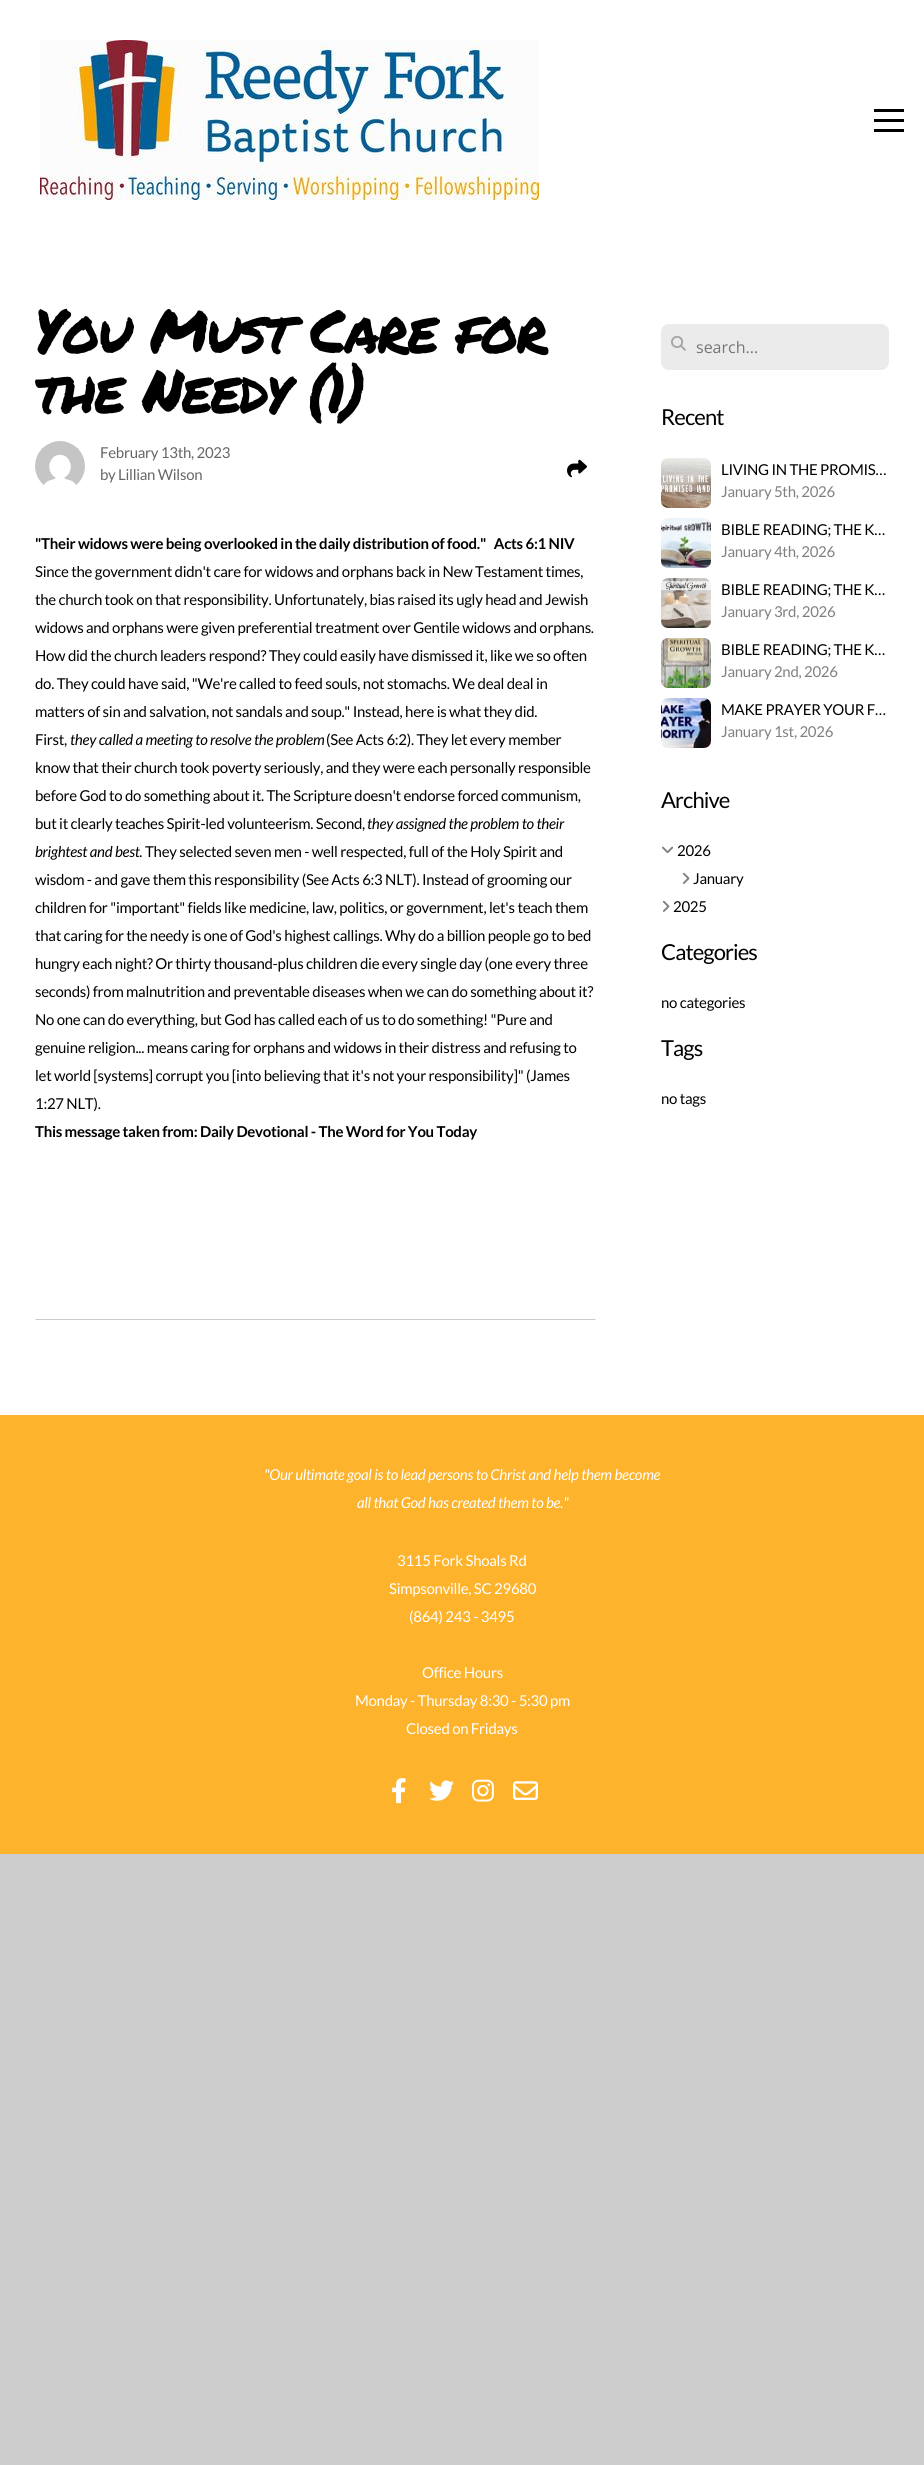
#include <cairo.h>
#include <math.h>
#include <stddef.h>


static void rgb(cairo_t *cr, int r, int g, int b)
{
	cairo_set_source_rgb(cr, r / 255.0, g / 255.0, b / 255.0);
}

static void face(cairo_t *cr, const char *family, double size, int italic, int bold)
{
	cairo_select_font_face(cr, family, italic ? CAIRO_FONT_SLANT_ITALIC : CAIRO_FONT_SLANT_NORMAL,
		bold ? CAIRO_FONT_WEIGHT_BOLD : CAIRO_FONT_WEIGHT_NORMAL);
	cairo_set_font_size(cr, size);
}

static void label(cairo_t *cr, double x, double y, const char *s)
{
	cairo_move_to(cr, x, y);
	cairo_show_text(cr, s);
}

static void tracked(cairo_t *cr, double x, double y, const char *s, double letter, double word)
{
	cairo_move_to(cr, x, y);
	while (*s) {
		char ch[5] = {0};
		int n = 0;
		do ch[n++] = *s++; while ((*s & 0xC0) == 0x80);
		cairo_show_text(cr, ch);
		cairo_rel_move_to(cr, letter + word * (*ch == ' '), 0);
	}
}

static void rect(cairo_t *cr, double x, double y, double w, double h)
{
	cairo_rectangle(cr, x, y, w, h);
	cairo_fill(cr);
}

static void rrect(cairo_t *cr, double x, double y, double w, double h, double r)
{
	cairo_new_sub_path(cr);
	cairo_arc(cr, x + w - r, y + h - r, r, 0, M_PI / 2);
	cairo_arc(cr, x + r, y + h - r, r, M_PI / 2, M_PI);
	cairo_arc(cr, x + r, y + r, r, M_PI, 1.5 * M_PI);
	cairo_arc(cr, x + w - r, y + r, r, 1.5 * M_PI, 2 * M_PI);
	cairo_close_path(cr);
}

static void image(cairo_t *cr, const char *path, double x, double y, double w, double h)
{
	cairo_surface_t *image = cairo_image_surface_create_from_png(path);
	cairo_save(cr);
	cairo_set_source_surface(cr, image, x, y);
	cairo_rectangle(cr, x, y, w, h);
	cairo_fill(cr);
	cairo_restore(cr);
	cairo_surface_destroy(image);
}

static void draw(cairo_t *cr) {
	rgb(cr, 204, 204, 204);
	cairo_paint(cr);
	rgb(cr, 255, 255, 255);
	rect(cr, 0, 0, 924, 1415);
	image(cr, "image0.png", 40, 40, 499, 160);
	rgb(cr, 0, 0, 0);
	rect(cr, 874, 109, 30, 3);
	rect(cr, 874, 119, 30, 3);
	rect(cr, 874, 129, 30, 3);
	face(cr, "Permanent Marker", 60, 0, 0);
	tracked(cr, 35, 353, "You Must Care for", -2.4, 0);
	tracked(cr, 35, 413, "the Needy (1)", -2.4, 0);
	image(cr, "image1.png", 35, 441, 50, 44);
	face(cr, "Lato", 15, 0, 0);
	rgb(cr, 102, 102, 102);
	tracked(cr, 100, 458, "February 13th, 2023", -0.28, 0);
	tracked(cr, 100, 480, "by Lillian Wilson", -0.28, 0);
	image(cr, "image2.png", 567, 459, 20, 19);
	face(cr, "Lato", 15, 0, 1);
	rgb(cr, 0, 0, 0);
	tracked(cr, 35, 549, "\"Their widows were being overlooked in the daily distribution of food.\"   Acts 6:1 NIV", -0.28, 0);
	face(cr, "Lato", 15, 0, 0);
	tracked(cr, 35, 577, "Since the government didn't care for widows and orphans back in New Testament times,", -0.28, 0);
	tracked(cr, 35, 605, "the church took on that responsibility. Unfortunately, bias raised its ugly head and Jewish", -0.28, 0);
	tracked(cr, 35, 633, "widows and orphans were given preferential treatment over Gentile widows and orphans.", -0.28, 0);
	tracked(cr, 35, 661, "How did the church leaders respond? They could easily have dismissed it, like we so often", -0.28, 0);
	tracked(cr, 35, 689, "do. They could have said, \"We're called to feed souls, not stomachs. We deal deal in", -0.28, 0);
	tracked(cr, 35, 717, "matters of sin and salvation, not sandals and soup.\" Instead, here is what they did.", -0.28, 0);
	tracked(cr, 35, 745, "First,", -0.28, 0);
	face(cr, "Lato", 15, 1, 0);
	tracked(cr, 70, 745, "they called a meeting to resolve the problem", -0.28, 0);
	face(cr, "Lato", 15, 0, 0);
	tracked(cr, 326, 745, "(See Acts 6:2). They let every member", -0.28, 0);
	tracked(cr, 35, 773, "know that their church took poverty seriously, and they were each personally responsible", -0.28, 0);
	tracked(cr, 35, 801, "before God to do something about it. The Scripture doesn't endorse forced communism,", -0.28, 0);
	tracked(cr, 35, 829, "but it clearly teaches Spirit-led volunteerism. Second,", -0.28, 0);
	face(cr, "Lato", 15, 1, 0);
	tracked(cr, 367, 829, "they assigned the problem to their", -0.28, 0);
	tracked(cr, 35, 857, "brightest and best.", -0.28, 0);
	face(cr, "Lato", 15, 0, 0);
	tracked(cr, 145, 857, "They selected seven men - well respected, full of the Holy Spirit and", -0.28, 0);
	tracked(cr, 35, 885, "wisdom - and gave them this responsibility (See Acts 6:3 NLT). Instead of grooming our", -0.28, 0);
	tracked(cr, 35, 913, "children for \"important\" fields like medicine, law, politics, or government, let's teach them", -0.28, 0);
	tracked(cr, 35, 941, "that caring for the needy is one of God's highest callings. Why do a billion people go to bed", -0.28, 0);
	tracked(cr, 35, 969, "hungry each night? Or thirty thousand-plus children die every single day (one every three", -0.28, 0);
	tracked(cr, 35, 997, "seconds) from malnutrition and preventable diseases when we can do something about it?", -0.28, 0);
	tracked(cr, 35, 1025, "No one can do everything, but God has called each of us to do something! \"Pure and", -0.28, 0);
	tracked(cr, 35, 1053, "genuine religion... means caring for orphans and widows in their distress and refusing to", -0.28, 0);
	tracked(cr, 35, 1081, "let world [systems] corrupt you [into believing that it's not your responsibility]\" (James", -0.28, 0);
	tracked(cr, 35, 1109, "1:27 NLT).", -0.28, 0);
	face(cr, "Lato", 15, 0, 1);
	tracked(cr, 35, 1137, "This message taken from: Daily Devotional - The Word for You Today", -0.28, 0);
	rgb(cr, 204, 204, 204);
	cairo_new_path(cr);
	cairo_move_to(cr, 596, 1320);
	cairo_line_to(cr, 35, 1320);
	cairo_line_to(cr, 36, 1319);
	cairo_line_to(cr, 595, 1319);
	cairo_close_path(cr);
	cairo_fill(cr);
	rgb(cr, 235, 235, 235);
	rrect(cr, 661, 324, 228, 46, 8);
	cairo_fill(cr);
	image(cr, "image3.png", 671, 336, 15, 15);
	face(cr, "Open Sans", 16, 0, 0);
	rgb(cr, 118, 118, 118);
	label(cr, 696, 353, "search...");
	face(cr, "Lato", 22, 0, 0);
	rgb(cr, 0, 0, 0);
	tracked(cr, 661, 425, "Recent", -0.9, 0);
	image(cr, "image4.png", 661, 458, 50, 50);
	face(cr, "Lato", 15, 0, 0);
	tracked(cr, 721, 475, "LIVING IN THE PROMIS…", -0.28, 0);
	rgb(cr, 128, 128, 128);
	tracked(cr, 721, 497, "January 5th, 2026", -0.28, 0);
	image(cr, "image5.png", 661, 518, 50, 50);
	rgb(cr, 0, 0, 0);
	tracked(cr, 721, 535, "BIBLE READING; THE K…", -0.28, 0);
	rgb(cr, 128, 128, 128);
	tracked(cr, 721, 557, "January 4th, 2026", -0.28, 0);
	image(cr, "image6.png", 661, 578, 50, 50);
	rgb(cr, 0, 0, 0);
	tracked(cr, 721, 595, "BIBLE READING; THE K…", -0.28, 0);
	rgb(cr, 128, 128, 128);
	tracked(cr, 721, 617, "January 3rd, 2026", -0.28, 0);
	image(cr, "image7.png", 661, 638, 50, 50);
	rgb(cr, 0, 0, 0);
	tracked(cr, 721, 655, "BIBLE READING; THE K…", -0.28, 0);
	rgb(cr, 128, 128, 128);
	tracked(cr, 721, 677, "January 2nd, 2026", -0.28, 0);
	image(cr, "image8.png", 661, 698, 50, 50);
	rgb(cr, 0, 0, 0);
	tracked(cr, 721, 715, "MAKE PRAYER YOUR F…", -0.28, 0);
	rgb(cr, 128, 128, 128);
	tracked(cr, 721, 737, "January 1st, 2026", -0.28, 0);
	face(cr, "Lato", 22, 0, 0);
	rgb(cr, 0, 0, 0);
	tracked(cr, 661, 808, "Archive", -0.9, 0);
	image(cr, "image9.png", 662, 846, 12, 8);
	face(cr, "Lato", 15, 0, 0);
	tracked(cr, 677, 856, "2026", -0.28, 0);
	image(cr, "image10.png", 682, 872, 8, 12);
	tracked(cr, 693, 884, "January", -0.28, 0);
	image(cr, "image10.png", 662, 900, 8, 12);
	tracked(cr, 673, 912, "2025", -0.28, 0);
	face(cr, "Lato", 22, 0, 0);
	tracked(cr, 661, 960, "Categories", -0.9, 0);
	face(cr, "Lato", 15, 0, 0);
	tracked(cr, 661, 1008, "no categories", -0.28, 0);
	face(cr, "Lato", 22, 0, 0);
	tracked(cr, 661, 1056, "Tags", -0.9, 0);
	face(cr, "Lato", 15, 0, 0);
	tracked(cr, 661, 1104, "no tags", -0.28, 0);
	rgb(cr, 253, 179, 43);
	rect(cr, 0, 1415, 924, 439);
	face(cr, "Lato", 15, 1, 0);
	rgb(cr, 255, 255, 255);
	tracked(cr, 264, 1480, "\"Our ultimate goal is to lead persons to Christ and help them become", -0.28, 0);
	tracked(cr, 357, 1508, "all that God has created them to be.\"", -0.28, 0);
	face(cr, "Lato", 15, 0, 0);
	tracked(cr, 397, 1566, "3115 Fork Shoals Rd", -0.28, 0);
	tracked(cr, 389, 1594, "Simpsonville, SC 29680", -0.28, 0);
	tracked(cr, 409, 1622, "(864) 243 - 3495", -0.28, 0);
	tracked(cr, 422, 1678, "Office Hours", -0.28, 0);
	tracked(cr, 355, 1706, "Monday - Thursday 8:30 - 5:30 pm", -0.28, 0);
	tracked(cr, 406, 1734, "Closed on Fridays", -0.28, 0);
	image(cr, "image11.png", 392, 1778, 14, 26);
	image(cr, "image12.png", 429, 1780, 25, 21);
	image(cr, "image13.png", 472, 1779, 22, 23);
	image(cr, "image14.png", 513, 1781, 25, 19);
}

int main(void) {
	cairo_surface_t *surface = cairo_image_surface_create(CAIRO_FORMAT_RGB24, 924, 2465);
	cairo_t *cr = cairo_create(surface);
	cairo_font_options_t *options = cairo_font_options_create();
	cairo_font_options_set_hint_metrics(options, CAIRO_HINT_METRICS_OFF);
	cairo_font_options_set_hint_style(options, CAIRO_HINT_STYLE_NONE);
	cairo_set_font_options(cr, options);
	cairo_set_miter_limit(cr, 4);
	draw(cr);
	cairo_surface_write_to_png(surface, "render.png");
	cairo_font_options_destroy(options);
	cairo_destroy(cr);
	cairo_surface_destroy(surface);
	return 0;
}
